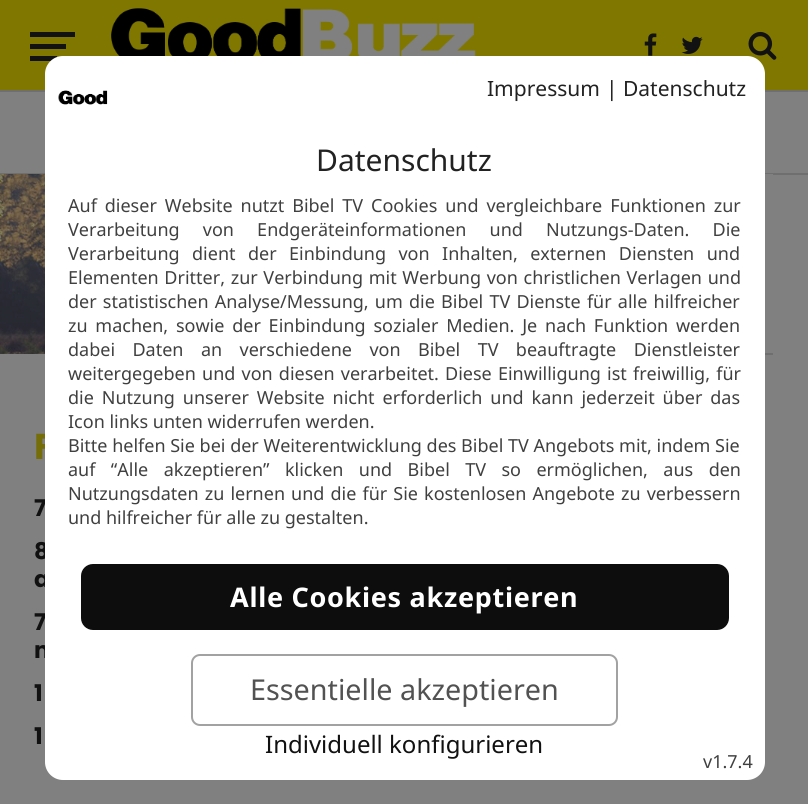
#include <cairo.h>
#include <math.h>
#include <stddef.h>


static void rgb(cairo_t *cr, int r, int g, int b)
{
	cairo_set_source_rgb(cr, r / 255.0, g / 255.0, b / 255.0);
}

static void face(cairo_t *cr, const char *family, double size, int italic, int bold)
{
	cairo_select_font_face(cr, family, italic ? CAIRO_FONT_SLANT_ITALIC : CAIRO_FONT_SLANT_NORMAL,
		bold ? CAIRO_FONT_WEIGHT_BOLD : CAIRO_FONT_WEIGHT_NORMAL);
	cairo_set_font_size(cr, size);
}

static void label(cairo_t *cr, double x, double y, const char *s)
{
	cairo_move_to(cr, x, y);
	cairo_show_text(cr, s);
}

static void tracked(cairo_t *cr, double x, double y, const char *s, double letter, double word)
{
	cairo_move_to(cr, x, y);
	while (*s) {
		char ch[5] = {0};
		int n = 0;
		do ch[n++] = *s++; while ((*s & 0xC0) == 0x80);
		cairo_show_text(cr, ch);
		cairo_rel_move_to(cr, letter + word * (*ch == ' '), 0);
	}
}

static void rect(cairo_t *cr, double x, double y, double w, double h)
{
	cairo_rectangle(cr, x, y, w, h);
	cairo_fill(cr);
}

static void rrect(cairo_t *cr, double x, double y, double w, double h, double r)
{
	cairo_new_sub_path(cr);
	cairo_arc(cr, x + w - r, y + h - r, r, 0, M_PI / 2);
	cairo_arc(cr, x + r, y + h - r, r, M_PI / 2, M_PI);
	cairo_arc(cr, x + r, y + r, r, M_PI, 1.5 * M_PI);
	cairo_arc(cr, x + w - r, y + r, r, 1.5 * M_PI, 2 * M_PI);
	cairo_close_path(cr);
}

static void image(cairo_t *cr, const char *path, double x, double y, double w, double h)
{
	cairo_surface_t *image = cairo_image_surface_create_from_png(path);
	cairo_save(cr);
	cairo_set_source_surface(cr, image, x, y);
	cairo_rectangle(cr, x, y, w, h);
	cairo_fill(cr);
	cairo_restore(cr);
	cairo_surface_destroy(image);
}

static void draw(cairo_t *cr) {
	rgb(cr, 128, 128, 128);
	cairo_paint(cr);
	rgb(cr, 127, 119, 0);
	rect(cr, 0, 0, 808, 90);
	rgb(cr, 18, 18, 18);
	rect(cr, 30, 32, 45, 5);
	rect(cr, 30, 44, 36, 5);
	rect(cr, 30, 56, 27, 5);
	image(cr, "image0.png", 111, 8, 365, 48);
	image(cr, "image1.png", 644, 33, 13, 23);
	image(cr, "image2.png", 681, 36, 22, 18);
	image(cr, "image3.png", 748, 31, 29, 29);
	rgb(cr, 111, 111, 111);
	rect(cr, 0, 90, 808, 2);
	rect(cr, 0, 173, 808, 2);
	image(cr, "image4.png", 0, 174, 45, 180);
	rgb(cr, 128, 128, 128);
	rect(cr, 765, 174, 8, 1);
	rgb(cr, 111, 111, 111);
	rect(cr, 765, 353, 8, 2);
	face(cr, "Poppins", 36, 0, 1);
	rgb(cr, 117, 109, 8);
	label(cr, 34, 459, "F");
	face(cr, "Poppins", 23, 0, 1);
	rgb(cr, 17, 17, 17);
	label(cr, 34, 516, "7");
	label(cr, 34, 559, "8");
	label(cr, 34, 587, "a");
	label(cr, 34, 630, "7");
	label(cr, 34, 658, "n");
	label(cr, 34, 701, "1");
	label(cr, 34, 744, "1");
	rgb(cr, 255, 255, 255);
	rrect(cr, 45, 56, 720, 724, 18);
	cairo_fill(cr);
	image(cr, "image5.png", 58, 90, 50, 15);
	face(cr, "Noto Sans", 21, 0, 0);
	rgb(cr, 34, 34, 34);
	label(cr, 487, 96, "Impressum");
	label(cr, 606, 96, "|");
	label(cr, 623, 96, "Datenschutz");
	face(cr, "Noto Sans", 30, 0, 0);
	label(cr, 316, 171, "Datenschutz");
	face(cr, "Noto Sans", 18, 0, 0);
	rgb(cr, 64, 64, 64);
	tracked(cr, 68, 212, "Auf dieser Website nutzt Bibel TV Cookies und vergleichbare Funktionen zur", 0, 3.25);
	tracked(cr, 68, 236, "Verarbeitung von Endgeräteinformationen und Nutzungs-Daten. Die", 0, 18.5);
	tracked(cr, 68, 260, "Verarbeitung dient der Einbindung von Inhalten, externen Diensten und", 0, 7.75);
	tracked(cr, 68, 284, "Elementen Dritter, zur Verbindung mit Werbung von christlichen Verlagen und", 0, 1);
	tracked(cr, 68, 308, "der statistischen Analyse/Messung, um die Bibel TV Dienste für alle hilfreicher", 0, 1.5);
	tracked(cr, 68, 332, "zu machen, sowie der Einbindung sozialer Medien. Je nach Funktion werden", 0, 3.1);
	tracked(cr, 68, 356, "dabei Daten an verschiedene von Bibel TV beauftragte Dienstleister", 0, 12.75);
	tracked(cr, 68, 380, "weitergegeben und von diesen verarbeitet. Diese Einwilligung ist freiwillig, für", 0, 1.5);
	tracked(cr, 68, 404, "die Nutzung unserer Website nicht erforderlich und kann jederzeit über das", 0, 3.25);
	label(cr, 68, 428, "Icon links unten widerrufen werden.");
	label(cr, 68, 452, "Bitte helfen Sie bei der Weiterentwicklung des Bibel TV Angebots mit, indem Sie");
	tracked(cr, 68, 476, "auf “Alle akzeptieren” klicken und Bibel TV so ermöglichen, aus den", 0, 10.75);
	tracked(cr, 68, 500, "Nutzungsdaten zu lernen und die für Sie kostenlosen Angebote zu verbessern", 0, 1.4);
	label(cr, 68, 524, "und hilfreicher für alle zu gestalten.");
	rgb(cr, 13, 13, 13);
	rrect(cr, 81, 564, 648, 66, 12);
	cairo_fill(cr);
	face(cr, "Noto Sans", 27, 0, 1);
	rgb(cr, 255, 255, 255);
	tracked(cr, 230, 607, "Alle Cookies akzeptieren", 0.7, 0);
	rrect(cr, 192, 655, 425, 70, 8);
	rgb(cr, 162, 162, 162);
	cairo_stroke(cr);
	face(cr, "Noto Sans", 28.75, 0, 0);
	rgb(cr, 82, 82, 82);
	label(cr, 250, 700, "Essentielle akzeptieren");
	face(cr, "Noto Sans", 24, 0, 0);
	rgb(cr, 17, 17, 17);
	label(cr, 265, 753, "Individuell konfigurieren");
	face(cr, "Noto Sans", 18, 0, 0);
	rgb(cr, 64, 64, 64);
	label(cr, 703, 768, "v1.7.4");
}

int main(void) {
	cairo_surface_t *surface = cairo_image_surface_create(CAIRO_FORMAT_RGB24, 808, 804);
	cairo_t *cr = cairo_create(surface);
	cairo_font_options_t *options = cairo_font_options_create();
	cairo_font_options_set_hint_metrics(options, CAIRO_HINT_METRICS_OFF);
	cairo_font_options_set_hint_style(options, CAIRO_HINT_STYLE_NONE);
	cairo_set_font_options(cr, options);
	cairo_set_miter_limit(cr, 4);
	draw(cr);
	cairo_surface_write_to_png(surface, "render.png");
	cairo_font_options_destroy(options);
	cairo_destroy(cr);
	cairo_surface_destroy(surface);
	return 0;
}
